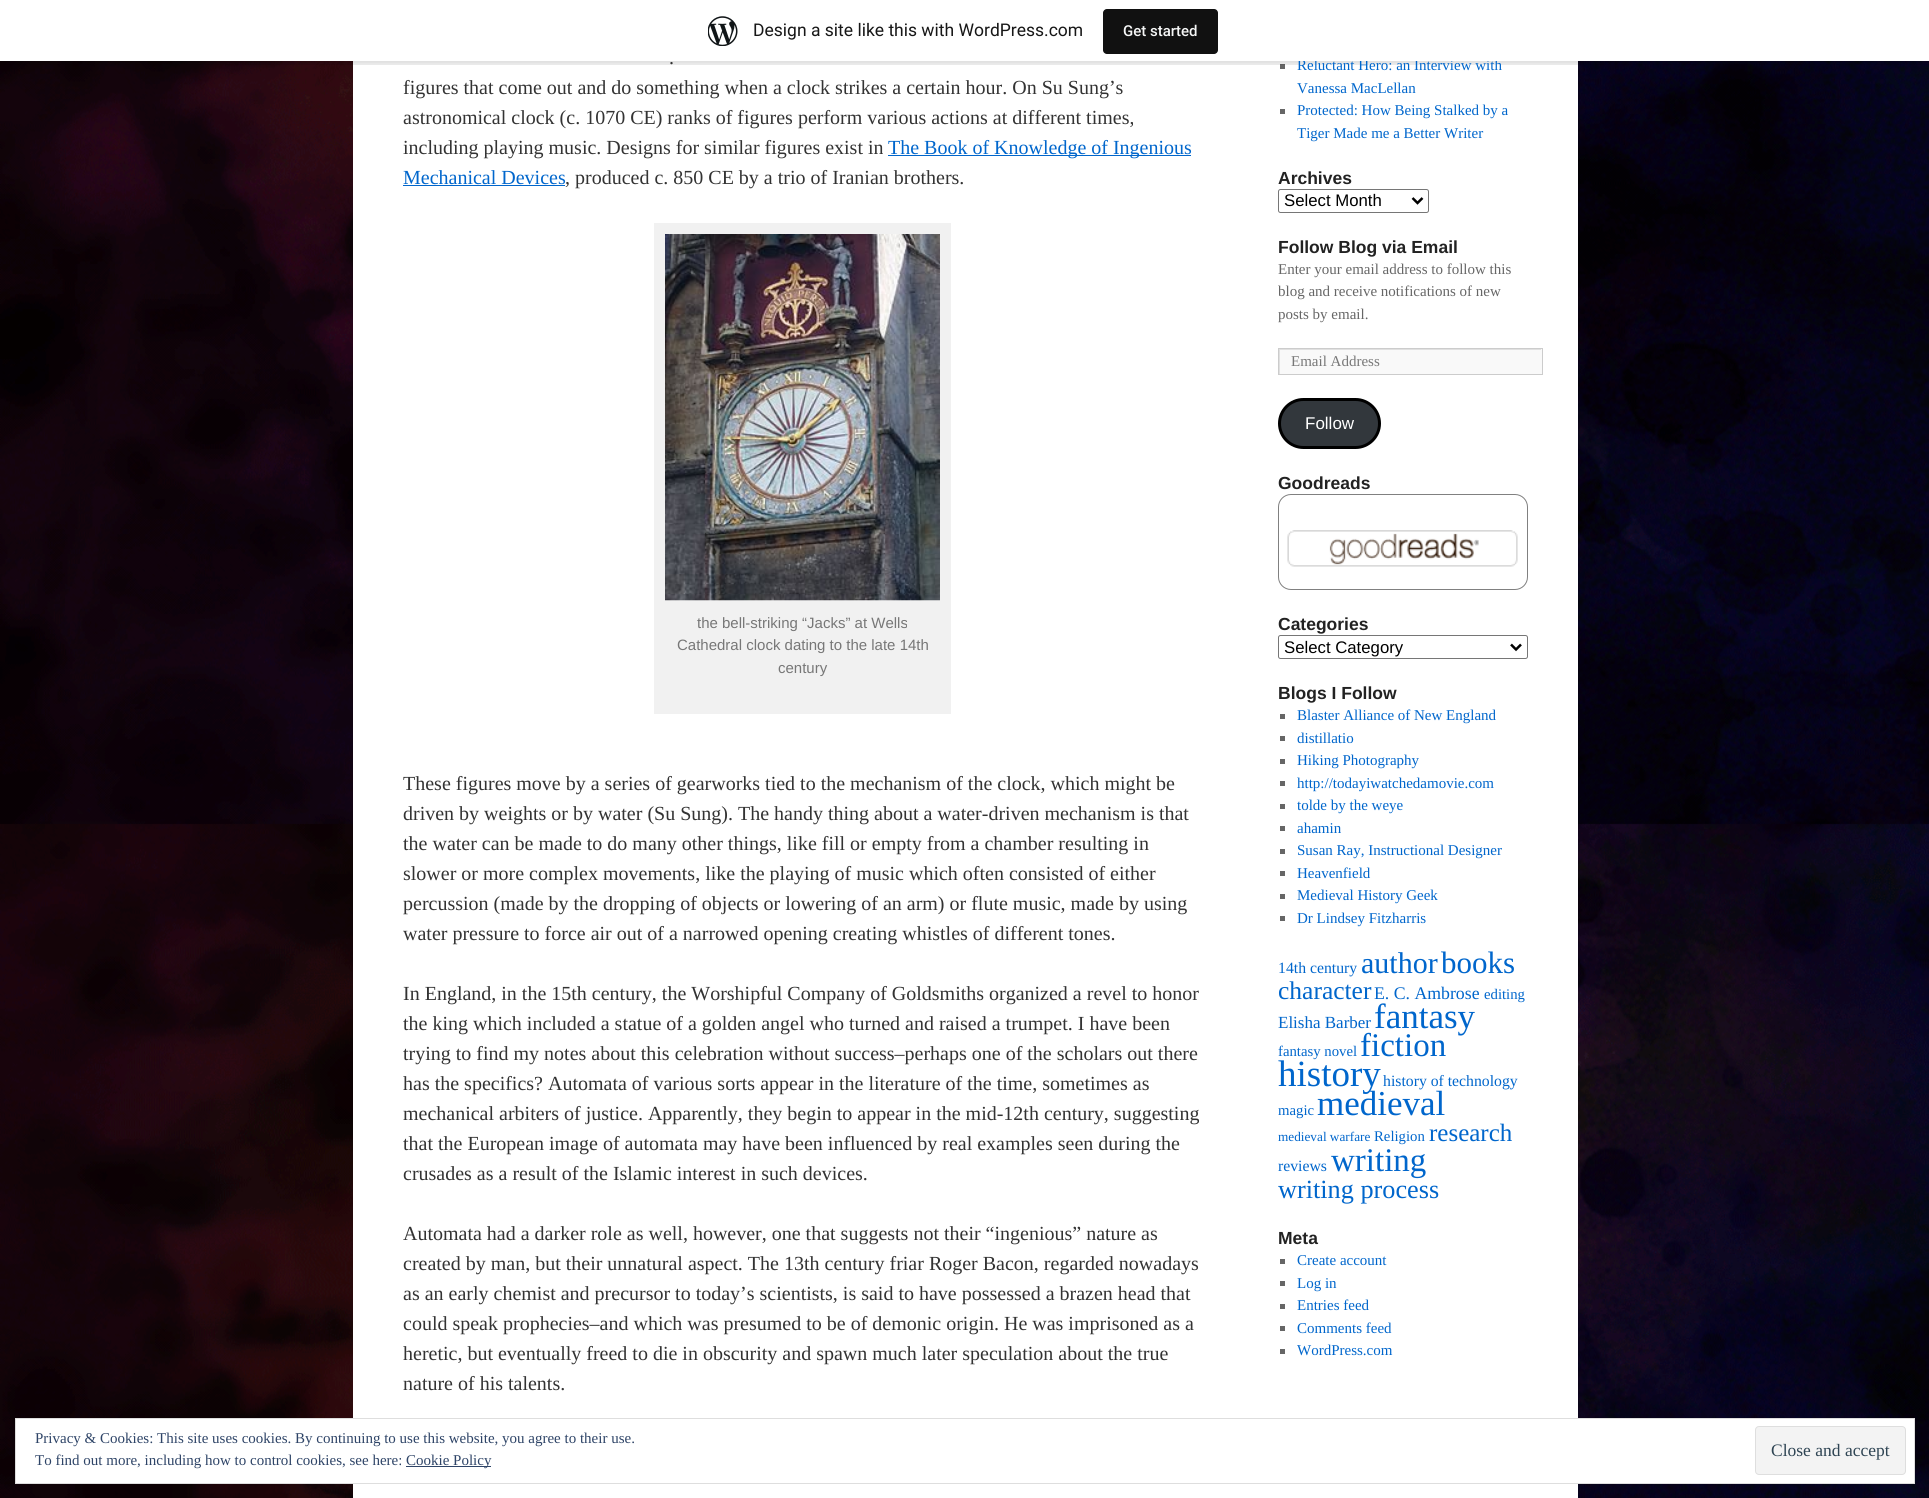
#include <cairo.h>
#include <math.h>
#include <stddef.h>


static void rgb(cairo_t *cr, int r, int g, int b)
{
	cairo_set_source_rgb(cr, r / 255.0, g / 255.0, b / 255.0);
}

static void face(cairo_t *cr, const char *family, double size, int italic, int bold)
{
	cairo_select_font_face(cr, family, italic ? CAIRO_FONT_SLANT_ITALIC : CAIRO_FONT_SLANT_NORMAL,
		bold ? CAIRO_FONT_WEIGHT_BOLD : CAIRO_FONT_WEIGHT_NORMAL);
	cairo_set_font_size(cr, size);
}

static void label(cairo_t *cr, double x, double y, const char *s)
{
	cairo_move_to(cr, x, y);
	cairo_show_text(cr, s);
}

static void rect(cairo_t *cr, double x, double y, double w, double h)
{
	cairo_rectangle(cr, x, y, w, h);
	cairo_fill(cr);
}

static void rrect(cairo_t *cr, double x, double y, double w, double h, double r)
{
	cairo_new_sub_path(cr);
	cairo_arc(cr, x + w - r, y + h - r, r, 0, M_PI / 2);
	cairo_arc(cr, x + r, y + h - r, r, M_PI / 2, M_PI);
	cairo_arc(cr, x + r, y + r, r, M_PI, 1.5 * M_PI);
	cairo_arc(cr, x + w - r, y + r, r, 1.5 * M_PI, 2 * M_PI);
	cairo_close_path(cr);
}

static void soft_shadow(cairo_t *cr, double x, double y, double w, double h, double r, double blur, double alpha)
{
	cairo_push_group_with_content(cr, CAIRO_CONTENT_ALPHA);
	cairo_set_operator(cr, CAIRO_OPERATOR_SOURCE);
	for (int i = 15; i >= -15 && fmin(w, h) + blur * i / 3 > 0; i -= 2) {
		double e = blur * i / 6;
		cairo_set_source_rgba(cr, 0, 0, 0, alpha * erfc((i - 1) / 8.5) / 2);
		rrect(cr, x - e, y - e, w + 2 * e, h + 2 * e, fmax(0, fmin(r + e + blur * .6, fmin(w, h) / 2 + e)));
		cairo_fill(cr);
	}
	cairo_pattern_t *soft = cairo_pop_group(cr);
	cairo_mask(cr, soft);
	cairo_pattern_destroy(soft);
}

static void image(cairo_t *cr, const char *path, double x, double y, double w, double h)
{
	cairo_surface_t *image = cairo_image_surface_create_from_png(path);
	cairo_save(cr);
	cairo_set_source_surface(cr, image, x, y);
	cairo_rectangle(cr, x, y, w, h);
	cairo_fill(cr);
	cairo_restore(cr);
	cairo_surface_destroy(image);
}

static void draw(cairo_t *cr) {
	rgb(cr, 255, 255, 255);
	cairo_paint(cr);
	image(cr, "image0.png", 0, 61, 1929, 1437);
	rgb(cr, 255, 255, 255);
	rect(cr, 353, 61, 1225, 1437);
	rgb(cr, 102, 102, 102);
	rect(cr, 1280, 64, 5, 5);
	rgb(cr, 0, 0, 0);
	soft_shadow(cr, 0, 1, 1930, 62, 0, 1, 0.05);
	cairo_set_source_rgba(cr, 0, 0, 0, 0.08);
	cairo_new_path(cr);
	cairo_move_to(cr, 1, 61);
	cairo_line_to(cr, 1, 65);
	cairo_line_to(cr, 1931, 65);
	cairo_line_to(cr, 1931, 4);
	cairo_line_to(cr, 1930, 4);
	cairo_line_to(cr, 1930, 61);
	cairo_close_path(cr);
	cairo_fill(cr);
	face(cr, "Liberation Serif", 15, 0, 0);
	rgb(cr, 0, 102, 204);
	label(cr, 1297, 70, "Reluctant Hero: an Interview with");
	rgb(cr, 255, 255, 255);
	rect(cr, 0, 0, 1929, 61);
	image(cr, "image1.png", 708, 16, 30, 30);
	face(cr, "Roboto", 17.5, 0, 0);
	rgb(cr, 23, 23, 23);
	label(cr, 753, 36, "Design a site like this with WordPress.com");
	rgb(cr, 17, 17, 17);
	rrect(cr, 1103, 9, 115, 45, 4);
	cairo_fill(cr);
	face(cr, "Roboto Medium", 15, 0, 0);
	rgb(cr, 246, 247, 247);
	label(cr, 1123, 36, "Get started");
	face(cr, "Liberation Serif", 20, 0, 0);
	rgb(cr, 51, 51, 51);
	label(cr, 669, 64, ".");
	label(cr, 403, 94, "figures that come out and do something when a clock strikes a certain hour. On Su Sung’s");
	label(cr, 403, 124, "astronomical clock (c. 1070 CE) ranks of figures perform various actions at different times,");
	label(cr, 403, 154, "including playing music. Designs for similar figures exist in");
	rgb(cr, 0, 102, 204);
	rect(cr, 888, 155, 303, 1);
	label(cr, 888, 154, "The Book of Knowledge of Ingenious");
	label(cr, 403, 184, "Mechanical Devices");
	rect(cr, 403, 185, 162, 1);
	rgb(cr, 51, 51, 51);
	label(cr, 565, 184, ", produced c. 850 CE by a trio of Iranian brothers.");
	rgb(cr, 241, 241, 241);
	rect(cr, 654, 223, 297, 491);
	image(cr, "image2.png", 665, 234, 275, 367);
	face(cr, "Liberation Sans", 15, 0, 0);
	rgb(cr, 119, 119, 119);
	label(cr, 697, 628, "the bell-striking “Jacks” at Wells");
	label(cr, 677, 650, "Cathedral clock dating to the late 14th");
	label(cr, 778, 673, "century");
	face(cr, "Liberation Serif", 20, 0, 0);
	rgb(cr, 51, 51, 51);
	label(cr, 403, 790, "These figures move by a series of gearworks tied to the mechanism of the clock, which might be");
	label(cr, 403, 820, "driven by weights or by water (Su Sung). The handy thing about a water-driven mechanism is that");
	label(cr, 403, 850, "the water can be made to do many other things, like fill or empty from a chamber resulting in");
	label(cr, 403, 880, "slower or more complex movements, like the playing of music which often consisted of either");
	label(cr, 403, 910, "percussion (made by the dropping of objects or lowering of an arm) or flute music, made by using");
	label(cr, 403, 940, "water pressure to force air out of a narrowed opening creating whistles of different tones.");
	label(cr, 403, 1000, "In England, in the 15th century, the Worshipful Company of Goldsmiths organized a revel to honor");
	label(cr, 403, 1030, "the king which included a statue of a golden angel who turned and raised a trumpet. I have been");
	label(cr, 403, 1060, "trying to find my notes about this celebration without success–perhaps one of the scholars out there");
	label(cr, 403, 1090, "has the specifics? Automata of various sorts appear in the literature of the time, sometimes as");
	label(cr, 403, 1120, "mechanical arbiters of justice. Apparently, they begin to appear in the mid-12th century, suggesting");
	label(cr, 403, 1150, "that the European image of automata may have been influenced by real examples seen during the");
	label(cr, 403, 1180, "crusades as a result of the Islamic interest in such devices.");
	label(cr, 403, 1240, "Automata had a darker role as well, however, one that suggests not their “ingenious” nature as");
	label(cr, 403, 1270, "created by man, but their unnatural aspect. The 13th century friar Roger Bacon, regarded nowadays");
	label(cr, 403, 1300, "as an early chemist and precursor to today’s scientists, is said to have possessed a brazen head that");
	label(cr, 403, 1330, "could speak prophecies–and which was presumed to be of demonic origin. He was imprisoned as a");
	label(cr, 403, 1360, "heretic, but eventually freed to die in obscurity and spawn much later speculation about the true");
	label(cr, 403, 1390, "nature of his talents.");
	face(cr, "Liberation Serif", 15, 0, 0);
	rgb(cr, 0, 102, 204);
	label(cr, 1297, 93, "Vanessa MacLellan");
	rgb(cr, 102, 102, 102);
	rect(cr, 1280, 109, 5, 5);
	rgb(cr, 0, 102, 204);
	label(cr, 1297, 115, "Protected: How Being Stalked by a");
	label(cr, 1297, 138, "Tiger Made me a Better Writer");
	face(cr, "Liberation Sans", 17.5, 0, 1);
	rgb(cr, 34, 34, 34);
	label(cr, 1278, 184, "Archives");
	rrect(cr, 1278.5, 189.5, 150, 23, 2);
	rgb(cr, 118, 118, 118);
	cairo_set_line_width(cr, 1);
	cairo_stroke(cr);
	cairo_new_path(cr);
	cairo_move_to(cr, 1412.5, 198);
	cairo_line_to(cr, 1417.5, 203);
	cairo_line_to(cr, 1422.5, 198);
	rgb(cr, 0, 0, 0);
	cairo_set_line_width(cr, 2.5);
	cairo_stroke(cr);
	face(cr, "Liberation Sans", 16.75, 0, 0);
	label(cr, 1284, 206, "Select Month");
	face(cr, "Liberation Sans", 17.5, 0, 1);
	rgb(cr, 34, 34, 34);
	label(cr, 1278, 253, "Follow Blog via Email");
	face(cr, "Liberation Serif", 15, 0, 0);
	rgb(cr, 102, 102, 102);
	label(cr, 1278, 274, "Enter your email address to follow this");
	label(cr, 1278, 296, "blog and receive notifications of new");
	label(cr, 1278, 319, "posts by email.");
	rgb(cr, 249, 249, 249);
	rect(cr, 1280, 349, 262, 25);
	cairo_save(cr);
	cairo_rectangle(cr, 1279, 349, 262, 25);
	cairo_clip(cr);
	rgb(cr, 224, 224, 224);
	cairo_set_fill_rule(cr, CAIRO_FILL_RULE_EVEN_ODD);
	cairo_new_path(cr);
	cairo_move_to(cr, 1155, 225);
	cairo_line_to(cr, 1665, 225);
	cairo_line_to(cr, 1665, 498);
	cairo_line_to(cr, 1155, 498);
	cairo_close_path(cr);
	cairo_move_to(cr, 1280, 350);
	cairo_line_to(cr, 1542, 350);
	cairo_line_to(cr, 1542, 375);
	cairo_line_to(cr, 1280, 375);
	cairo_close_path(cr);
	cairo_fill(cr);
	cairo_restore(cr);
	cairo_rectangle(cr, 1278.5, 348.5, 264, 26);
	rgb(cr, 204, 204, 204);
	cairo_set_line_width(cr, 1);
	cairo_stroke(cr);
	rgb(cr, 119, 119, 119);
	label(cr, 1291, 366, "Email Address");
	rgb(cr, 50, 55, 60);
	rrect(cr, 1279.5, 399.5, 100, 48, 24);
	cairo_fill_preserve(cr);
	rgb(cr, 0, 0, 0);
	cairo_set_line_width(cr, 3);
	cairo_stroke(cr);
	face(cr, "Liberation Sans", 17, 0, 0);
	rgb(cr, 255, 255, 255);
	label(cr, 1305, 429, "Follow");
	face(cr, "Liberation Sans", 17.5, 0, 1);
	rgb(cr, 34, 34, 34);
	label(cr, 1278, 489, "Goodreads");
	rrect(cr, 1278.5, 494.5, 249, 95, 12.5);
	rgb(cr, 128, 128, 128);
	cairo_set_line_width(cr, 1);
	cairo_stroke(cr);
	image(cr, "image3.png", 1287, 530, 231, 37);
	rgb(cr, 34, 34, 34);
	label(cr, 1278, 630, "Categories");
	rrect(cr, 1278.5, 635.5, 249, 23, 2);
	rgb(cr, 118, 118, 118);
	cairo_stroke(cr);
	cairo_new_path(cr);
	cairo_move_to(cr, 1511, 644.5);
	cairo_line_to(cr, 1516, 649.5);
	cairo_line_to(cr, 1521, 644.5);
	rgb(cr, 0, 0, 0);
	cairo_set_line_width(cr, 2.5);
	cairo_stroke(cr);
	face(cr, "Liberation Sans", 16.75, 0, 0);
	label(cr, 1284, 653, "Select Category");
	face(cr, "Liberation Sans", 17.5, 0, 1);
	rgb(cr, 34, 34, 34);
	label(cr, 1278, 699, "Blogs I Follow");
	rgb(cr, 102, 102, 102);
	rect(cr, 1280, 714, 5, 5);
	face(cr, "Liberation Serif", 15, 0, 0);
	rgb(cr, 0, 102, 204);
	label(cr, 1297, 720, "Blaster Alliance of New England");
	rgb(cr, 102, 102, 102);
	rect(cr, 1280, 736, 5, 5);
	rgb(cr, 0, 102, 204);
	label(cr, 1297, 743, "distillatio");
	rgb(cr, 102, 102, 102);
	rect(cr, 1280, 759, 5, 5);
	rgb(cr, 0, 102, 204);
	label(cr, 1297, 765, "Hiking Photography");
	rgb(cr, 102, 102, 102);
	rect(cr, 1280, 781, 5, 5);
	rgb(cr, 0, 102, 204);
	label(cr, 1297, 788, "http://todayiwatchedamovie.com");
	rgb(cr, 102, 102, 102);
	rect(cr, 1280, 804, 5, 5);
	rgb(cr, 0, 102, 204);
	label(cr, 1297, 810, "tolde by the weye");
	rgb(cr, 102, 102, 102);
	rect(cr, 1280, 826, 5, 5);
	rgb(cr, 0, 102, 204);
	label(cr, 1297, 833, "ahamin");
	rgb(cr, 102, 102, 102);
	rect(cr, 1280, 849, 5, 5);
	rgb(cr, 0, 102, 204);
	label(cr, 1297, 855, "Susan Ray, Instructional Designer");
	rgb(cr, 102, 102, 102);
	rect(cr, 1280, 871, 5, 5);
	rgb(cr, 0, 102, 204);
	label(cr, 1297, 878, "Heavenfield");
	rgb(cr, 102, 102, 102);
	rect(cr, 1280, 894, 5, 5);
	rgb(cr, 0, 102, 204);
	label(cr, 1297, 900, "Medieval History Geek");
	rgb(cr, 102, 102, 102);
	rect(cr, 1280, 916, 5, 5);
	rgb(cr, 0, 102, 204);
	label(cr, 1297, 923, "Dr Lindsey Fitzharris");
	face(cr, "Liberation Serif", 15.75, 0, 0);
	label(cr, 1278, 973, "14th century");
	face(cr, "Liberation Serif", 30, 0, 0);
	label(cr, 1361, 973, "author");
	face(cr, "Liberation Serif", 31, 0, 0);
	label(cr, 1441, 973, "books");
	face(cr, "Liberation Serif", 25.5, 0, 0);
	label(cr, 1278, 999, "character");
	face(cr, "Liberation Serif", 17.75, 0, 0);
	label(cr, 1374, 999, "E. C. Ambrose");
	face(cr, "Liberation Serif", 14.75, 0, 0);
	label(cr, 1484, 999, "editing");
	face(cr, "Liberation Serif", 17, 0, 0);
	label(cr, 1278, 1028, "Elisha Barber");
	face(cr, "Liberation Serif", 35, 0, 0);
	label(cr, 1374, 1028, "fantasy");
	face(cr, "Liberation Serif", 14.75, 0, 0);
	label(cr, 1278, 1056, "fantasy novel");
	face(cr, "Liberation Serif", 33, 0, 0);
	label(cr, 1360, 1056, "fiction");
	face(cr, "Liberation Serif", 37, 0, 0);
	label(cr, 1278, 1086, "history");
	face(cr, "Liberation Serif", 15.75, 0, 0);
	label(cr, 1383, 1086, "history of technology");
	face(cr, "Liberation Serif", 14.75, 0, 0);
	label(cr, 1278, 1115, "magic");
	face(cr, "Liberation Serif", 35, 0, 0);
	label(cr, 1317, 1115, "medieval");
	face(cr, "Liberation Serif", 13.25, 0, 0);
	label(cr, 1278, 1141, "medieval warfare");
	face(cr, "Liberation Serif", 14.75, 0, 0);
	label(cr, 1374, 1141, "Religion");
	face(cr, "Liberation Serif", 25, 0, 0);
	label(cr, 1429, 1141, "research");
	face(cr, "Liberation Serif", 15.75, 0, 0);
	label(cr, 1278, 1171, "reviews");
	face(cr, "Liberation Serif", 33, 0, 0);
	label(cr, 1331, 1171, "writing");
	face(cr, "Liberation Serif", 26.25, 0, 0);
	label(cr, 1278, 1198, "writing process");
	face(cr, "Liberation Sans", 17.5, 0, 1);
	rgb(cr, 34, 34, 34);
	label(cr, 1278, 1244, "Meta");
	rgb(cr, 102, 102, 102);
	rect(cr, 1280, 1259, 5, 5);
	face(cr, "Liberation Serif", 15, 0, 0);
	rgb(cr, 0, 102, 204);
	label(cr, 1297, 1265, "Create account");
	rgb(cr, 102, 102, 102);
	rect(cr, 1280, 1281, 5, 5);
	rgb(cr, 0, 102, 204);
	label(cr, 1297, 1288, "Log in");
	rgb(cr, 102, 102, 102);
	rect(cr, 1280, 1304, 5, 5);
	rgb(cr, 0, 102, 204);
	label(cr, 1297, 1310, "Entries feed");
	rgb(cr, 102, 102, 102);
	rect(cr, 1280, 1326, 5, 5);
	rgb(cr, 0, 102, 204);
	label(cr, 1297, 1333, "Comments feed");
	rgb(cr, 102, 102, 102);
	rect(cr, 1280, 1349, 5, 5);
	rgb(cr, 0, 102, 204);
	label(cr, 1297, 1355, "WordPress.com");
	rgb(cr, 255, 255, 255);
	cairo_rectangle(cr, 15.5, 1418.5, 1899, 65);
	cairo_fill_preserve(cr);
	rgb(cr, 222, 222, 222);
	cairo_set_line_width(cr, 1);
	cairo_stroke(cr);
	rgb(cr, 46, 68, 103);
	label(cr, 35, 1443, "Privacy & Cookies: This site uses cookies. By continuing to use this website, you agree to their use.");
	rgb(cr, 243, 243, 243);
	rrect(cr, 1755.5, 1426.5, 150, 48, 3.5);
	cairo_fill_preserve(cr);
	rgb(cr, 222, 222, 222);
	cairo_stroke(cr);
	face(cr, "Liberation Serif", 17.5, 0, 0);
	rgb(cr, 46, 68, 83);
	label(cr, 1771, 1456, "Close and accept");
	face(cr, "Liberation Serif", 15, 0, 0);
	rgb(cr, 46, 68, 103);
	label(cr, 35, 1465, "To find out more, including how to control cookies, see here:");
	rect(cr, 406, 1466, 85, 1);
	label(cr, 406, 1465, "Cookie Policy");
}

int main(void) {
	cairo_surface_t *surface = cairo_image_surface_create(CAIRO_FORMAT_RGB24, 1929, 1498);
	cairo_t *cr = cairo_create(surface);
	cairo_font_options_t *options = cairo_font_options_create();
	cairo_font_options_set_hint_metrics(options, CAIRO_HINT_METRICS_OFF);
	cairo_font_options_set_hint_style(options, CAIRO_HINT_STYLE_NONE);
	cairo_set_font_options(cr, options);
	cairo_set_miter_limit(cr, 4);
	draw(cr);
	cairo_surface_write_to_png(surface, "render.png");
	cairo_font_options_destroy(options);
	cairo_destroy(cr);
	cairo_surface_destroy(surface);
	return 0;
}
